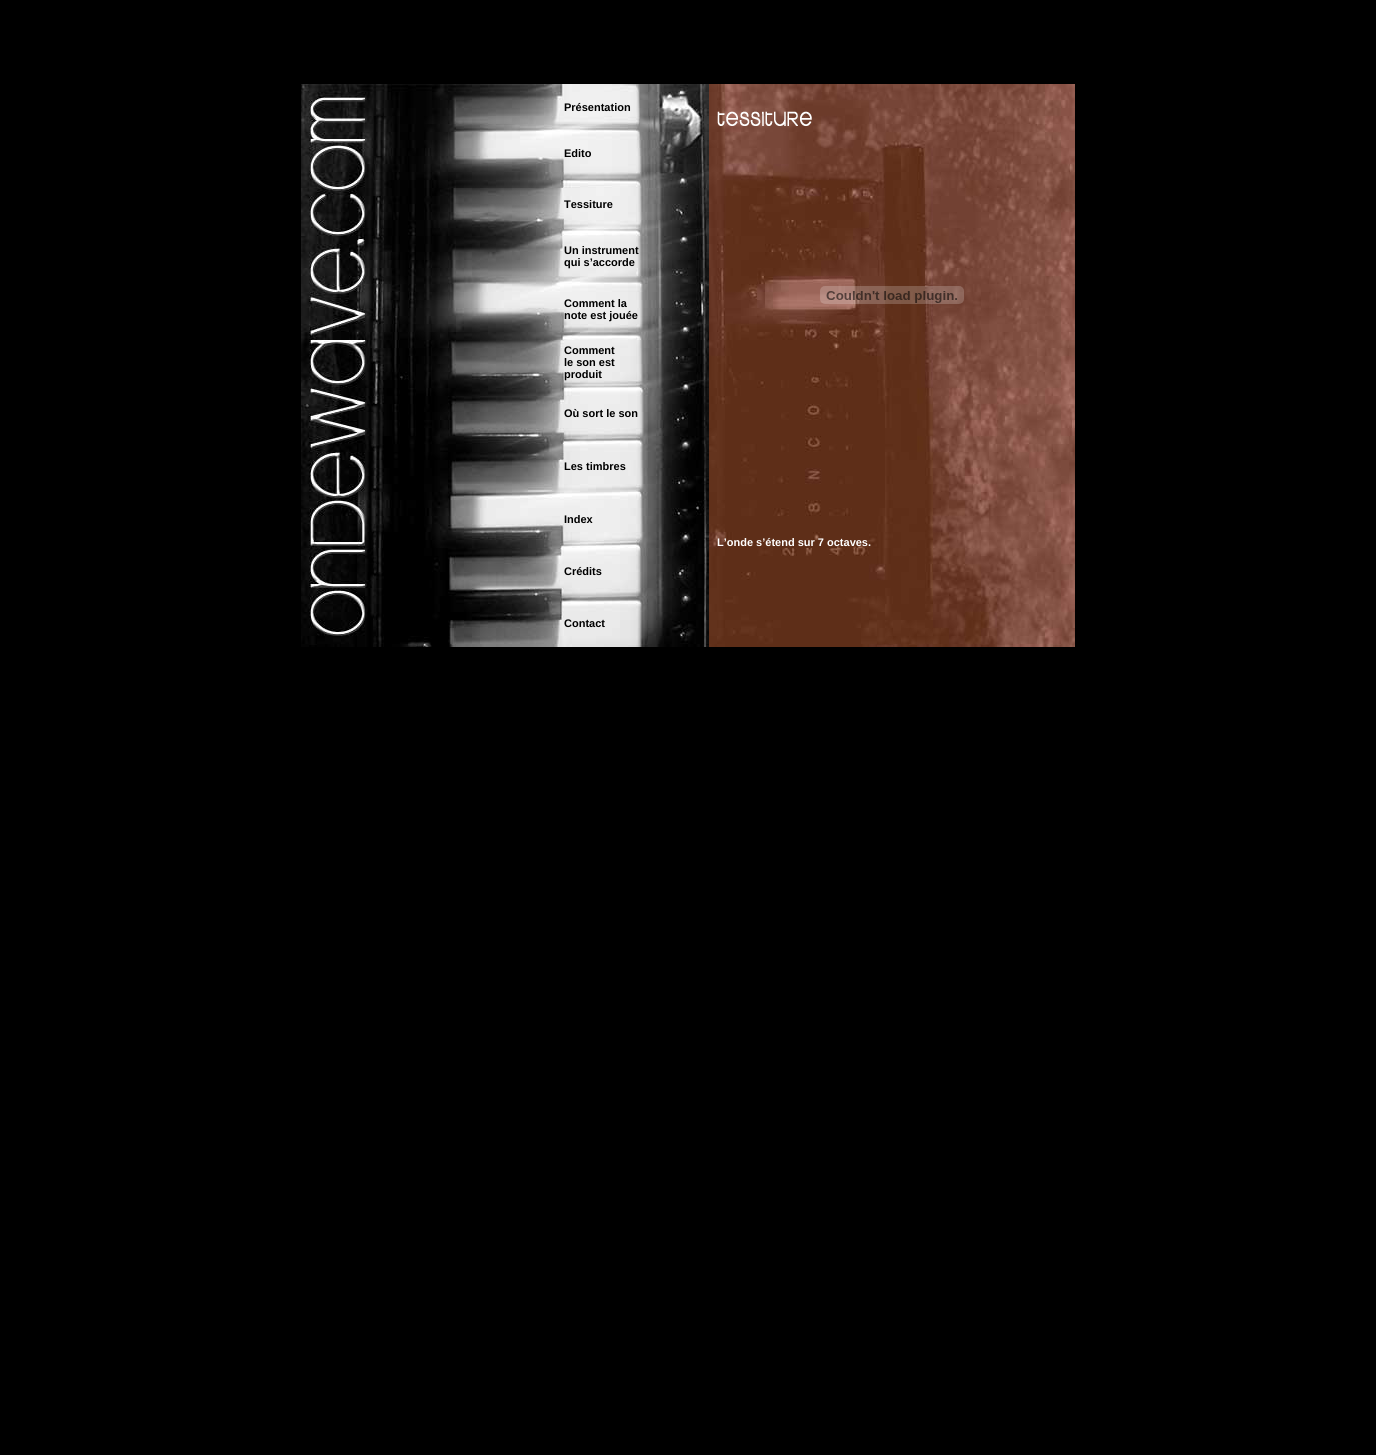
#include <cairo.h>
#include <math.h>
#include <stddef.h>


static void rgb(cairo_t *cr, int r, int g, int b)
{
	cairo_set_source_rgb(cr, r / 255.0, g / 255.0, b / 255.0);
}

static void face(cairo_t *cr, const char *family, double size, int italic, int bold)
{
	cairo_select_font_face(cr, family, italic ? CAIRO_FONT_SLANT_ITALIC : CAIRO_FONT_SLANT_NORMAL,
		bold ? CAIRO_FONT_WEIGHT_BOLD : CAIRO_FONT_WEIGHT_NORMAL);
	cairo_set_font_size(cr, size);
}

static void label(cairo_t *cr, double x, double y, const char *s)
{
	cairo_move_to(cr, x, y);
	cairo_show_text(cr, s);
}

static void image(cairo_t *cr, const char *path, double x, double y, double w, double h)
{
	cairo_surface_t *image = cairo_image_surface_create_from_png(path);
	cairo_save(cr);
	cairo_set_source_surface(cr, image, x, y);
	cairo_rectangle(cr, x, y, w, h);
	cairo_fill(cr);
	cairo_restore(cr);
	cairo_surface_destroy(image);
}

static void draw(cairo_t *cr) {
	rgb(cr, 0, 0, 0);
	cairo_paint(cr);
	image(cr, "image0.png", 301, 84, 75, 563);
	image(cr, "image1.png", 376, 84, 80, 563);
	image(cr, "image2.png", 456, 84, 108, 563);
	image(cr, "image3.png", 564, 84, 76, 563);
	face(cr, "Liberation Sans", 11, 0, 1);
	rgb(cr, 0, 0, 0);
	label(cr, 564, 111, "Présentation");
	label(cr, 564, 157, "Edito");
	label(cr, 564, 208, "Tessiture");
	label(cr, 564, 254, "Un instrument");
	label(cr, 564, 266, "qui s’accorde");
	label(cr, 564, 307, "Comment la");
	label(cr, 564, 319, "note est jouée");
	label(cr, 564, 354, "Comment");
	label(cr, 564, 366, "le son est");
	label(cr, 564, 378, "produit");
	label(cr, 564, 417, "Où sort le son");
	label(cr, 564, 470, "Les timbres");
	label(cr, 564, 523, "Index");
	label(cr, 564, 575, "Crédits");
	label(cr, 564, 627, "Contact");
	image(cr, "image4.png", 640, 84, 69, 563);
	image(cr, "image5.png", 709, 84, 366, 563);
	image(cr, "image6.png", 717, 111, 95, 15);
	image(cr, "image7.png", 820, 286, 144, 18);
	rgb(cr, 255, 255, 255);
	label(cr, 717, 546, "L’onde s’étend sur 7 octaves.");
}

int main(void) {
	cairo_surface_t *surface = cairo_image_surface_create(CAIRO_FORMAT_RGB24, 1376, 1455);
	cairo_t *cr = cairo_create(surface);
	cairo_font_options_t *options = cairo_font_options_create();
	cairo_font_options_set_hint_metrics(options, CAIRO_HINT_METRICS_OFF);
	cairo_font_options_set_hint_style(options, CAIRO_HINT_STYLE_NONE);
	cairo_set_font_options(cr, options);
	cairo_set_miter_limit(cr, 4);
	draw(cr);
	cairo_surface_write_to_png(surface, "render.png");
	cairo_font_options_destroy(options);
	cairo_destroy(cr);
	cairo_surface_destroy(surface);
	return 0;
}
